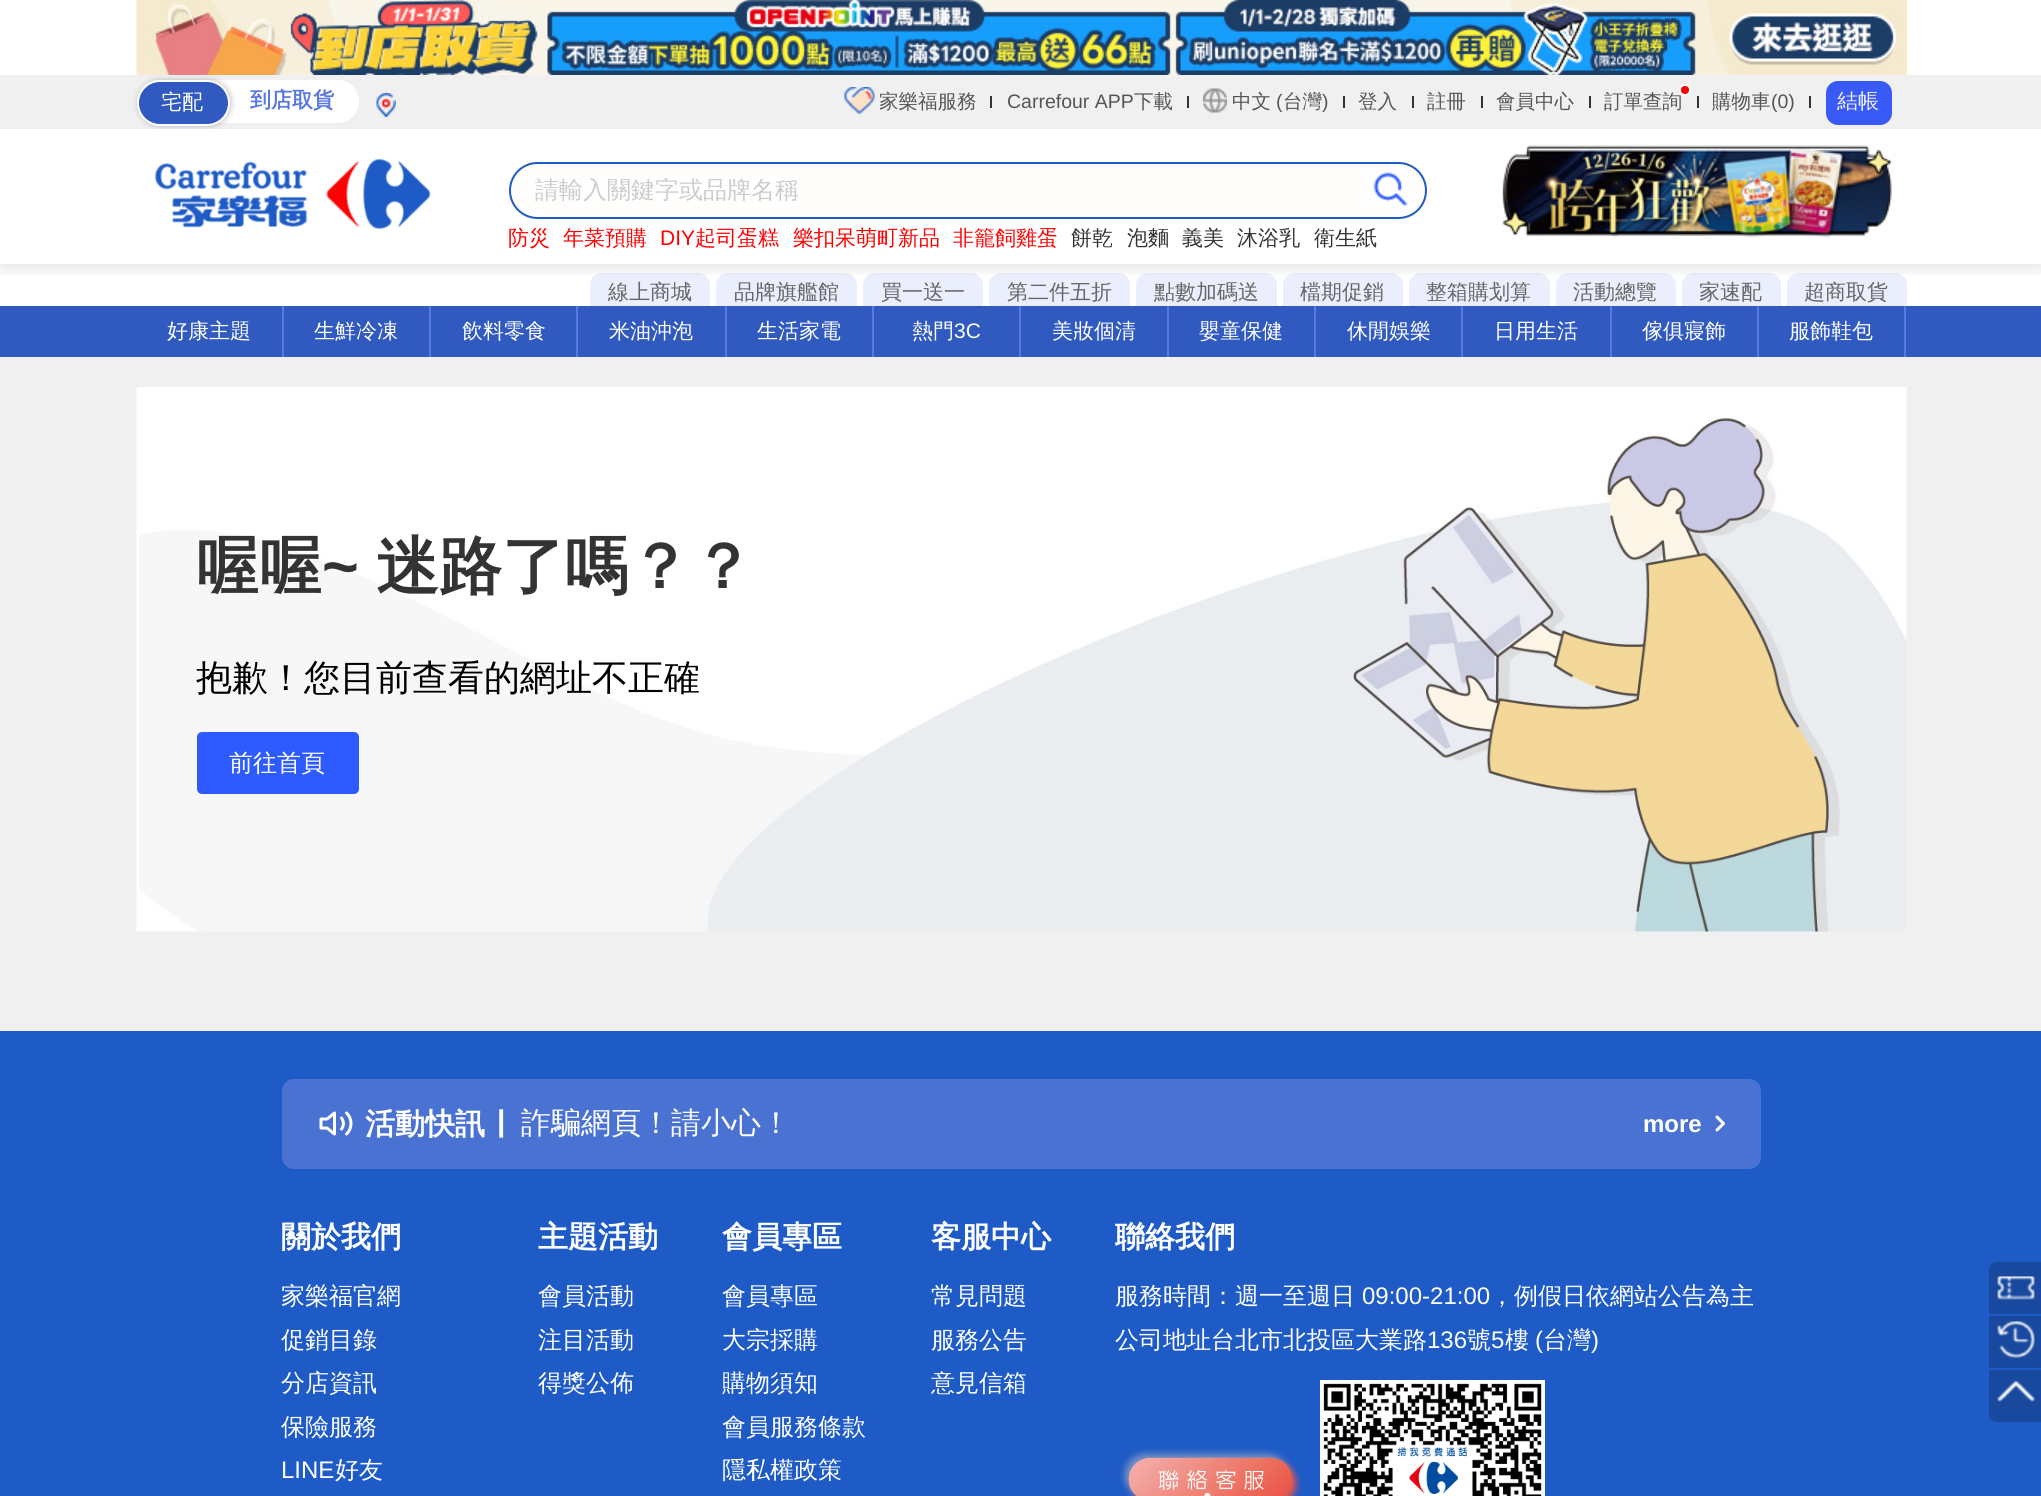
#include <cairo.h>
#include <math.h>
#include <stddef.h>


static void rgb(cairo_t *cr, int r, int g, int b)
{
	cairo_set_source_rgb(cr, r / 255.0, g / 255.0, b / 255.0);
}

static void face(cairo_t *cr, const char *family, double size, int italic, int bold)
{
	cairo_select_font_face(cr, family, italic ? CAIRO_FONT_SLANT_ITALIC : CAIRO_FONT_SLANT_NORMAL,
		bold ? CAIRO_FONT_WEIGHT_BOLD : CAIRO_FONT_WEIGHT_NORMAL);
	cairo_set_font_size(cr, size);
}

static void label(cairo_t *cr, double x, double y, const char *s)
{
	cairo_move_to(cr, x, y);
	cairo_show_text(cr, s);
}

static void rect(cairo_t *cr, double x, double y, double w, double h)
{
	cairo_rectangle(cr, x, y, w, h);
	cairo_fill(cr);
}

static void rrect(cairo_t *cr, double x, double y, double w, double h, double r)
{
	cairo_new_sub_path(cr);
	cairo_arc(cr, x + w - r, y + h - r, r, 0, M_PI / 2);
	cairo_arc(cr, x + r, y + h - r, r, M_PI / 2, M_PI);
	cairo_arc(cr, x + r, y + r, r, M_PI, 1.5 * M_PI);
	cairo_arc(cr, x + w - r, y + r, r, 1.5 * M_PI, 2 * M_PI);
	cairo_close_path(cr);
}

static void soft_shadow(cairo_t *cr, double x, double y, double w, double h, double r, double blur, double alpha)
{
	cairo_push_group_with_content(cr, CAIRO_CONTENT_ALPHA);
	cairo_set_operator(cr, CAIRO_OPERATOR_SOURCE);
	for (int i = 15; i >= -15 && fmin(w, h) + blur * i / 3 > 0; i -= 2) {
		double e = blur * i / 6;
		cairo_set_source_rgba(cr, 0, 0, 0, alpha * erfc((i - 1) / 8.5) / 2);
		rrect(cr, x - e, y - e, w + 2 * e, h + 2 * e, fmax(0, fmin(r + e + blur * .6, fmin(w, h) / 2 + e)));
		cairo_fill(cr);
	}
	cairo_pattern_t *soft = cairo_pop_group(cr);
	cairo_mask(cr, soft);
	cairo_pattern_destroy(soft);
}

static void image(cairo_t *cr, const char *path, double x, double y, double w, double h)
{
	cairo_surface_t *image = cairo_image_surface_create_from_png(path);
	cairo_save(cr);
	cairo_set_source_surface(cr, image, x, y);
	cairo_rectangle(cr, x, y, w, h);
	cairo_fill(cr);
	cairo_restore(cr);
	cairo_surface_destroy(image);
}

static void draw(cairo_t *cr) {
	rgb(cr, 240, 240, 240);
	cairo_paint(cr);
	rgb(cr, 255, 255, 255);
	rect(cr, 0, 0, 2041, 306);
	rgb(cr, 235, 238, 253);
	cairo_new_path(cr);
	cairo_move_to(cr, 602, 273);
	cairo_line_to(cr, 698, 273);
	cairo_curve_to(cr, 704.5, 273, 710, 278.5, 710, 285);
	cairo_line_to(cr, 710, 309);
	cairo_line_to(cr, 590, 309);
	cairo_line_to(cr, 590, 285);
	cairo_curve_to(cr, 590, 278.5, 595.5, 273, 602, 273);
	cairo_close_path(cr);
	cairo_fill(cr);
	cairo_new_path(cr);
	cairo_move_to(cr, 728, 273);
	cairo_line_to(cr, 845, 273);
	cairo_curve_to(cr, 851.5, 273, 857, 278.5, 857, 285);
	cairo_line_to(cr, 857, 309);
	cairo_line_to(cr, 716, 309);
	cairo_line_to(cr, 716, 285);
	cairo_curve_to(cr, 716, 278.5, 721.5, 273, 728, 273);
	cairo_close_path(cr);
	cairo_fill(cr);
	cairo_new_path(cr);
	cairo_move_to(cr, 875, 273);
	cairo_line_to(cr, 971, 273);
	cairo_curve_to(cr, 977.5, 273, 983, 278.5, 983, 285);
	cairo_line_to(cr, 983, 309);
	cairo_line_to(cr, 863, 309);
	cairo_line_to(cr, 863, 285);
	cairo_curve_to(cr, 863, 278.5, 868.5, 273, 875, 273);
	cairo_close_path(cr);
	cairo_fill(cr);
	cairo_new_path(cr);
	cairo_move_to(cr, 1001, 273);
	cairo_line_to(cr, 1118, 273);
	cairo_curve_to(cr, 1124.5, 273, 1130, 278.5, 1130, 285);
	cairo_line_to(cr, 1130, 309);
	cairo_line_to(cr, 989, 309);
	cairo_line_to(cr, 989, 285);
	cairo_curve_to(cr, 989, 278.5, 994.5, 273, 1001, 273);
	cairo_close_path(cr);
	cairo_fill(cr);
	cairo_new_path(cr);
	cairo_move_to(cr, 1148, 273);
	cairo_line_to(cr, 1265, 273);
	cairo_curve_to(cr, 1271.5, 273, 1277, 278.5, 1277, 285);
	cairo_line_to(cr, 1277, 309);
	cairo_line_to(cr, 1136, 309);
	cairo_line_to(cr, 1136, 285);
	cairo_curve_to(cr, 1136, 278.5, 1141.5, 273, 1148, 273);
	cairo_close_path(cr);
	cairo_fill(cr);
	cairo_new_path(cr);
	cairo_move_to(cr, 1295, 273);
	cairo_line_to(cr, 1391, 273);
	cairo_curve_to(cr, 1397.5, 273, 1403, 278.5, 1403, 285);
	cairo_line_to(cr, 1403, 309);
	cairo_line_to(cr, 1283, 309);
	cairo_line_to(cr, 1283, 285);
	cairo_curve_to(cr, 1283, 278.5, 1288.5, 273, 1295, 273);
	cairo_close_path(cr);
	cairo_fill(cr);
	cairo_new_path(cr);
	cairo_move_to(cr, 1421, 273);
	cairo_line_to(cr, 1538, 273);
	cairo_curve_to(cr, 1544.5, 273, 1550, 278.5, 1550, 285);
	cairo_line_to(cr, 1550, 309);
	cairo_line_to(cr, 1409, 309);
	cairo_line_to(cr, 1409, 285);
	cairo_curve_to(cr, 1409, 278.5, 1414.5, 273, 1421, 273);
	cairo_close_path(cr);
	cairo_fill(cr);
	cairo_new_path(cr);
	cairo_move_to(cr, 1568, 273);
	cairo_line_to(cr, 1664, 273);
	cairo_curve_to(cr, 1670.5, 273, 1676, 278.5, 1676, 285);
	cairo_line_to(cr, 1676, 309);
	cairo_line_to(cr, 1556, 309);
	cairo_line_to(cr, 1556, 285);
	cairo_curve_to(cr, 1556, 278.5, 1561.5, 273, 1568, 273);
	cairo_close_path(cr);
	cairo_fill(cr);
	cairo_new_path(cr);
	cairo_move_to(cr, 1694, 273);
	cairo_line_to(cr, 1769, 273);
	cairo_curve_to(cr, 1775.5, 273, 1781, 278.5, 1781, 285);
	cairo_line_to(cr, 1781, 309);
	cairo_line_to(cr, 1682, 309);
	cairo_line_to(cr, 1682, 285);
	cairo_curve_to(cr, 1682, 278.5, 1687.5, 273, 1694, 273);
	cairo_close_path(cr);
	cairo_fill(cr);
	cairo_new_path(cr);
	cairo_move_to(cr, 1799, 273);
	cairo_line_to(cr, 1895, 273);
	cairo_curve_to(cr, 1901.5, 273, 1907, 278.5, 1907, 285);
	cairo_line_to(cr, 1907, 309);
	cairo_line_to(cr, 1787, 309);
	cairo_line_to(cr, 1787, 285);
	cairo_curve_to(cr, 1787, 278.5, 1792.5, 273, 1799, 273);
	cairo_close_path(cr);
	cairo_fill(cr);
	cairo_save(cr);
	cairo_rectangle(cr, 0, 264, 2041, 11);
	cairo_clip(cr);
	rgb(cr, 0, 0, 0);
	soft_shadow(cr, 0, 5, 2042, 264, 0, 7.5, 0.1);
	cairo_restore(cr);
	image(cr, "image0.png", 136, 0, 1771, 75);
	rgb(cr, 240, 240, 240);
	rect(cr, 0, 75, 2041, 54);
	rgb(cr, 255, 255, 255);
	rrect(cr, 137, 80, 222, 43, 21.5);
	cairo_fill(cr);
	rgb(cr, 0, 0, 0);
	soft_shadow(cr, 138, 80, 93, 46, 23, 3, 0.25);
	rgb(cr, 48, 90, 191);
	rrect(cr, 138, 81, 91, 44, 22);
	cairo_fill_preserve(cr);
	rgb(cr, 255, 255, 255);
	cairo_stroke(cr);
	face(cr, "WenQuanYi Zen Hei Medium", 21, 0, 0);
	label(cr, 161, 109, "宅配");
	face(cr, "WenQuanYi Zen Hei", 21, 0, 1);
	rgb(cr, 88, 119, 225);
	label(cr, 250, 107, "到店取貨");
	image(cr, "image1.png", 376, 93, 20, 24);
	image(cr, "image2.png", 844, 87, 31, 27);
	face(cr, "WenQuanYi Zen Hei Medium", 19.5, 0, 0);
	rgb(cr, 85, 85, 85);
	label(cr, 879, 108, "家樂福服務");
	rgb(cr, 51, 51, 51);
	rect(cr, 990, 96, 2, 12);
	face(cr, "Liberation Sans", 19.5, 0, 0);
	rgb(cr, 85, 85, 85);
	label(cr, 1007, 108, "Carrefour APP");
	face(cr, "WenQuanYi Zen Hei Medium", 19.5, 0, 0);
	label(cr, 1134, 108, "下載");
	rgb(cr, 51, 51, 51);
	rect(cr, 1187, 96, 2, 12);
	image(cr, "image3.png", 1203, 88, 24, 25);
	rgb(cr, 85, 85, 85);
	label(cr, 1232, 108, "中文");
	face(cr, "Liberation Sans", 19.5, 0, 0);
	label(cr, 1276, 108, "(");
	face(cr, "WenQuanYi Zen Hei Medium", 19.5, 0, 0);
	label(cr, 1283, 108, "台灣");
	face(cr, "Liberation Sans", 19.5, 0, 0);
	label(cr, 1322, 108, ")");
	rgb(cr, 51, 51, 51);
	rect(cr, 1343, 96, 2, 12);
	face(cr, "WenQuanYi Zen Hei Medium", 19.5, 0, 0);
	rgb(cr, 85, 85, 85);
	label(cr, 1358, 108, "登入");
	rgb(cr, 51, 51, 51);
	rect(cr, 1412, 96, 2, 12);
	rgb(cr, 85, 85, 85);
	label(cr, 1427, 108, "註冊");
	rgb(cr, 51, 51, 51);
	rect(cr, 1481, 96, 2, 12);
	rgb(cr, 85, 85, 85);
	label(cr, 1496, 108, "會員中心");
	rgb(cr, 51, 51, 51);
	rect(cr, 1589, 96, 2, 12);
	rgb(cr, 85, 85, 85);
	label(cr, 1604, 108, "訂單查詢");
	rgb(cr, 255, 0, 0);
	cairo_new_path(cr);
	cairo_arc(cr, 1685, 90, 5, 0, 2 * M_PI);
	cairo_fill_preserve(cr);
	rgb(cr, 255, 255, 255);
	cairo_stroke(cr);
	rgb(cr, 51, 51, 51);
	rect(cr, 1697, 96, 2, 12);
	rgb(cr, 85, 85, 85);
	label(cr, 1712, 108, "購物車");
	face(cr, "Liberation Sans", 19.5, 0, 0);
	label(cr, 1771, 108, "(0)");
	rgb(cr, 51, 51, 51);
	rect(cr, 1809, 96, 2, 12);
	rgb(cr, 57, 90, 246);
	rrect(cr, 1826, 81, 66, 44, 12);
	cairo_fill(cr);
	face(cr, "WenQuanYi Zen Hei Medium", 21, 0, 0);
	rgb(cr, 240, 240, 240);
	label(cr, 1837, 108, "結帳");
	rgb(cr, 255, 255, 255);
	rect(cr, 152, 129, 65, 2);
	image(cr, "image4.png", 154, 158, 277, 71);
	rgb(cr, 255, 254, 252);
	rrect(cr, 510, 163, 916, 55, 27.5);
	cairo_fill_preserve(cr);
	rgb(cr, 30, 91, 198);
	cairo_stroke(cr);
	face(cr, "WenQuanYi Zen Hei Medium", 24, 0, 0);
	rgb(cr, 204, 204, 204);
	label(cr, 535, 198, "請輸入關鍵字或品牌名稱");
	image(cr, "image5.png", 1373, 172, 35, 34);
	face(cr, "WenQuanYi Zen Hei Medium", 21, 0, 0);
	rgb(cr, 255, 0, 0);
	label(cr, 508, 245, "防災");
	label(cr, 563, 245, "年菜預購");
	face(cr, "Liberation Sans", 21, 0, 0);
	label(cr, 660, 245, "DIY");
	face(cr, "WenQuanYi Zen Hei Medium", 21, 0, 0);
	label(cr, 695, 245, "起司蛋糕");
	label(cr, 793, 245, "樂扣呆萌町新品");
	label(cr, 953, 245, "非籠飼雞蛋");
	rgb(cr, 51, 51, 51);
	label(cr, 1071, 245, "餅乾");
	label(cr, 1127, 245, "泡麵");
	label(cr, 1182, 245, "義美");
	label(cr, 1237, 245, "沐浴乳");
	label(cr, 1314, 245, "衛生紙");
	image(cr, "image6.png", 1502, 145, 390, 93);
	rgb(cr, 102, 102, 102);
	label(cr, 608, 299, "線上商城");
	label(cr, 734, 299, "品牌旗艦館");
	label(cr, 881, 299, "買一送一");
	label(cr, 1007, 299, "第二件五折");
	label(cr, 1154, 299, "點數加碼送");
	label(cr, 1300, 299, "檔期促銷");
	label(cr, 1426, 299, "整箱購划算");
	label(cr, 1573, 299, "活動總覽");
	label(cr, 1699, 299, "家速配");
	label(cr, 1804, 299, "超商取貨");
	rgb(cr, 48, 90, 191);
	rect(cr, 0, 306, 2041, 51);
	rgb(cr, 88, 119, 225);
	rect(cr, 282, 306, 2, 51);
	rgb(cr, 255, 255, 255);
	label(cr, 167, 338, "好康主題");
	rgb(cr, 88, 119, 225);
	rect(cr, 429, 306, 2, 51);
	rgb(cr, 255, 255, 255);
	label(cr, 314, 338, "生鮮冷凍");
	rgb(cr, 88, 119, 225);
	rect(cr, 576, 306, 2, 51);
	rgb(cr, 255, 255, 255);
	label(cr, 462, 338, "飲料零食");
	rgb(cr, 88, 119, 225);
	rect(cr, 725, 306, 2, 51);
	rgb(cr, 255, 255, 255);
	label(cr, 609, 338, "米油沖泡");
	rgb(cr, 88, 119, 225);
	rect(cr, 872, 306, 2, 51);
	rgb(cr, 255, 255, 255);
	label(cr, 757, 338, "生活家電");
	rgb(cr, 88, 119, 225);
	rect(cr, 1019, 306, 2, 51);
	rgb(cr, 255, 255, 255);
	label(cr, 912, 338, "熱門");
	face(cr, "Liberation Sans", 21, 0, 0);
	label(cr, 954, 338, "3C");
	rgb(cr, 88, 119, 225);
	rect(cr, 1167, 306, 2, 51);
	face(cr, "WenQuanYi Zen Hei Medium", 21, 0, 0);
	rgb(cr, 255, 255, 255);
	label(cr, 1052, 338, "美妝個清");
	rgb(cr, 88, 119, 225);
	rect(cr, 1314, 306, 2, 51);
	rgb(cr, 255, 255, 255);
	label(cr, 1199, 338, "嬰童保健");
	rgb(cr, 88, 119, 225);
	rect(cr, 1461, 306, 2, 51);
	rgb(cr, 255, 255, 255);
	label(cr, 1347, 338, "休閒娛樂");
	rgb(cr, 88, 119, 225);
	rect(cr, 1610, 306, 2, 51);
	rgb(cr, 255, 255, 255);
	label(cr, 1494, 338, "日用生活");
	rgb(cr, 88, 119, 225);
	rect(cr, 1757, 306, 2, 51);
	rgb(cr, 255, 255, 255);
	label(cr, 1642, 338, "傢俱寢飾");
	rgb(cr, 88, 119, 225);
	rect(cr, 1904, 306, 2, 51);
	rgb(cr, 255, 255, 255);
	label(cr, 1789, 338, "服飾鞋包");
	image(cr, "image7.png", 136, 387, 1771, 545);
	face(cr, "WenQuanYi Zen Hei", 63, 0, 1);
	rgb(cr, 51, 51, 51);
	label(cr, 196, 588, "喔喔");
	face(cr, "Liberation Sans", 63, 0, 1);
	label(cr, 322, 588, "~");
	face(cr, "WenQuanYi Zen Hei", 63, 0, 1);
	label(cr, 376, 588, "迷路了嗎？？");
	face(cr, "WenQuanYi Zen Hei Medium", 36, 0, 0);
	rgb(cr, 0, 0, 0);
	label(cr, 196, 690, "抱歉！您目前查看的網址不正確");
	rgb(cr, 46, 91, 255);
	rrect(cr, 197, 732, 162, 62, 5);
	cairo_fill(cr);
	face(cr, "WenQuanYi Zen Hei Medium", 24, 0, 0);
	rgb(cr, 255, 255, 255);
	label(cr, 229, 771, "前往首頁");
	rgb(cr, 30, 91, 198);
	rect(cr, 0, 1031, 2041, 465);
	rgb(cr, 74, 114, 211);
	rrect(cr, 282, 1079, 1479, 90, 12);
	cairo_fill(cr);
	cairo_new_path(cr);
	cairo_move_to(cr, 334.5, 1113);
	cairo_line_to(cr, 327, 1119);
	cairo_line_to(cr, 321, 1119);
	cairo_line_to(cr, 321, 1128);
	cairo_line_to(cr, 327, 1128);
	cairo_line_to(cr, 334.5, 1134);
	cairo_close_path(cr);
	cairo_move_to(cr, 346.5, 1113);
	cairo_curve_to(cr, 352.5, 1118.5, 352.5, 1128.5, 346.5, 1134);
	cairo_move_to(cr, 341.5, 1118);
	cairo_curve_to(cr, 344, 1121, 344, 1126, 341.5, 1129);
	rgb(cr, 255, 255, 255);
	cairo_set_line_width(cr, 3);
	cairo_set_line_cap(cr, CAIRO_LINE_CAP_ROUND);
	cairo_set_line_join(cr, CAIRO_LINE_JOIN_ROUND);
	cairo_stroke(cr);
	face(cr, "WenQuanYi Zen Hei", 30, 0, 1);
	label(cr, 365, 1134, "活動快訊");
	face(cr, "Liberation Sans", 30, 0, 1);
	label(cr, 497, 1131, "|");
	face(cr, "WenQuanYi Zen Hei Medium", 30, 0, 0);
	label(cr, 521, 1133, "詐騙網頁！請小心！");
	face(cr, "Liberation Sans", 24, 0, 1);
	label(cr, 1643, 1132, "more");
	cairo_new_path(cr);
	cairo_move_to(cr, 1717, 1117);
	cairo_line_to(cr, 1723.5, 1123.5);
	cairo_line_to(cr, 1717, 1130);
	cairo_stroke(cr);
	face(cr, "WenQuanYi Zen Hei", 30, 0, 1);
	label(cr, 281, 1247, "關於我們");
	face(cr, "WenQuanYi Zen Hei Medium", 24, 0, 0);
	label(cr, 281, 1304, "家樂福官網");
	label(cr, 281, 1348, "促銷目錄");
	label(cr, 281, 1391, "分店資訊");
	label(cr, 281, 1435, "保險服務");
	face(cr, "Liberation Sans", 24, 0, 0);
	label(cr, 281, 1478, "LINE");
	face(cr, "WenQuanYi Zen Hei Medium", 24, 0, 0);
	label(cr, 335, 1478, "好友");
	face(cr, "WenQuanYi Zen Hei", 30, 0, 1);
	label(cr, 538, 1247, "主題活動");
	face(cr, "WenQuanYi Zen Hei Medium", 24, 0, 0);
	label(cr, 538, 1304, "會員活動");
	label(cr, 538, 1348, "注目活動");
	label(cr, 538, 1391, "得獎公佈");
	face(cr, "WenQuanYi Zen Hei", 30, 0, 1);
	label(cr, 722, 1247, "會員專區");
	face(cr, "WenQuanYi Zen Hei Medium", 24, 0, 0);
	label(cr, 722, 1304, "會員專區");
	label(cr, 722, 1348, "大宗採購");
	label(cr, 722, 1391, "購物須知");
	label(cr, 722, 1435, "會員服務條款");
	label(cr, 722, 1478, "隱私權政策");
	face(cr, "WenQuanYi Zen Hei", 30, 0, 1);
	label(cr, 931, 1247, "客服中心");
	face(cr, "WenQuanYi Zen Hei Medium", 24, 0, 0);
	label(cr, 931, 1304, "常見問題");
	label(cr, 931, 1348, "服務公告");
	label(cr, 931, 1391, "意見信箱");
	face(cr, "WenQuanYi Zen Hei", 30, 0, 1);
	label(cr, 1115, 1247, "聯絡我們");
	face(cr, "WenQuanYi Zen Hei Medium", 24, 0, 0);
	label(cr, 1115, 1304, "服務時間：週一至週日");
	face(cr, "Liberation Sans", 24, 0, 0);
	label(cr, 1362, 1304, "09:00-21:00");
	face(cr, "WenQuanYi Zen Hei Medium", 24, 0, 0);
	label(cr, 1490, 1304, "，例假日依網站公告為主");
	label(cr, 1115, 1348, "公司地址台北市北投區大業路");
	face(cr, "Liberation Sans", 24, 0, 0);
	label(cr, 1427, 1348, "136");
	face(cr, "WenQuanYi Zen Hei Medium", 24, 0, 0);
	label(cr, 1467, 1348, "號");
	face(cr, "Liberation Sans", 24, 0, 0);
	label(cr, 1491, 1348, "5");
	face(cr, "WenQuanYi Zen Hei Medium", 24, 0, 0);
	label(cr, 1505, 1348, "樓");
	face(cr, "Liberation Sans", 24, 0, 0);
	label(cr, 1535, 1348, "(");
	face(cr, "WenQuanYi Zen Hei Medium", 24, 0, 0);
	label(cr, 1543, 1348, "台灣");
	face(cr, "Liberation Sans", 24, 0, 0);
	label(cr, 1591, 1348, ")");
	image(cr, "image8.png", 1119, 1448, 183, 48);
	image(cr, "image9.png", 1320, 1380, 225, 116);
	rgb(cr, 24, 73, 158);
	cairo_new_path(cr);
	cairo_move_to(cr, 1997, 1262);
	cairo_line_to(cr, 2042, 1262);
	cairo_line_to(cr, 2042, 1314);
	cairo_line_to(cr, 1989, 1314);
	cairo_line_to(cr, 1989, 1270);
	cairo_curve_to(cr, 1989, 1265.5, 1992.5, 1262, 1997, 1262);
	cairo_close_path(cr);
	cairo_fill(cr);
	image(cr, "image10.png", 1997, 1276, 38, 24);
	rect(cr, 1989, 1316, 52, 52);
	image(cr, "image11.png", 1997, 1321, 38, 37);
	cairo_new_path(cr);
	cairo_move_to(cr, 1989, 1370);
	cairo_line_to(cr, 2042, 1370);
	cairo_line_to(cr, 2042, 1422);
	cairo_line_to(cr, 1997, 1422);
	cairo_curve_to(cr, 1992.5, 1422, 1989, 1418.5, 1989, 1414);
	cairo_close_path(cr);
	cairo_fill(cr);
	image(cr, "image12.png", 1997, 1381, 38, 21);
}

int main(void) {
	cairo_surface_t *surface = cairo_image_surface_create(CAIRO_FORMAT_RGB24, 2041, 1496);
	cairo_t *cr = cairo_create(surface);
	cairo_font_options_t *options = cairo_font_options_create();
	cairo_font_options_set_hint_metrics(options, CAIRO_HINT_METRICS_OFF);
	cairo_font_options_set_hint_style(options, CAIRO_HINT_STYLE_NONE);
	cairo_set_font_options(cr, options);
	cairo_set_miter_limit(cr, 4);
	draw(cr);
	cairo_surface_write_to_png(surface, "render.png");
	cairo_font_options_destroy(options);
	cairo_destroy(cr);
	cairo_surface_destroy(surface);
	return 0;
}
